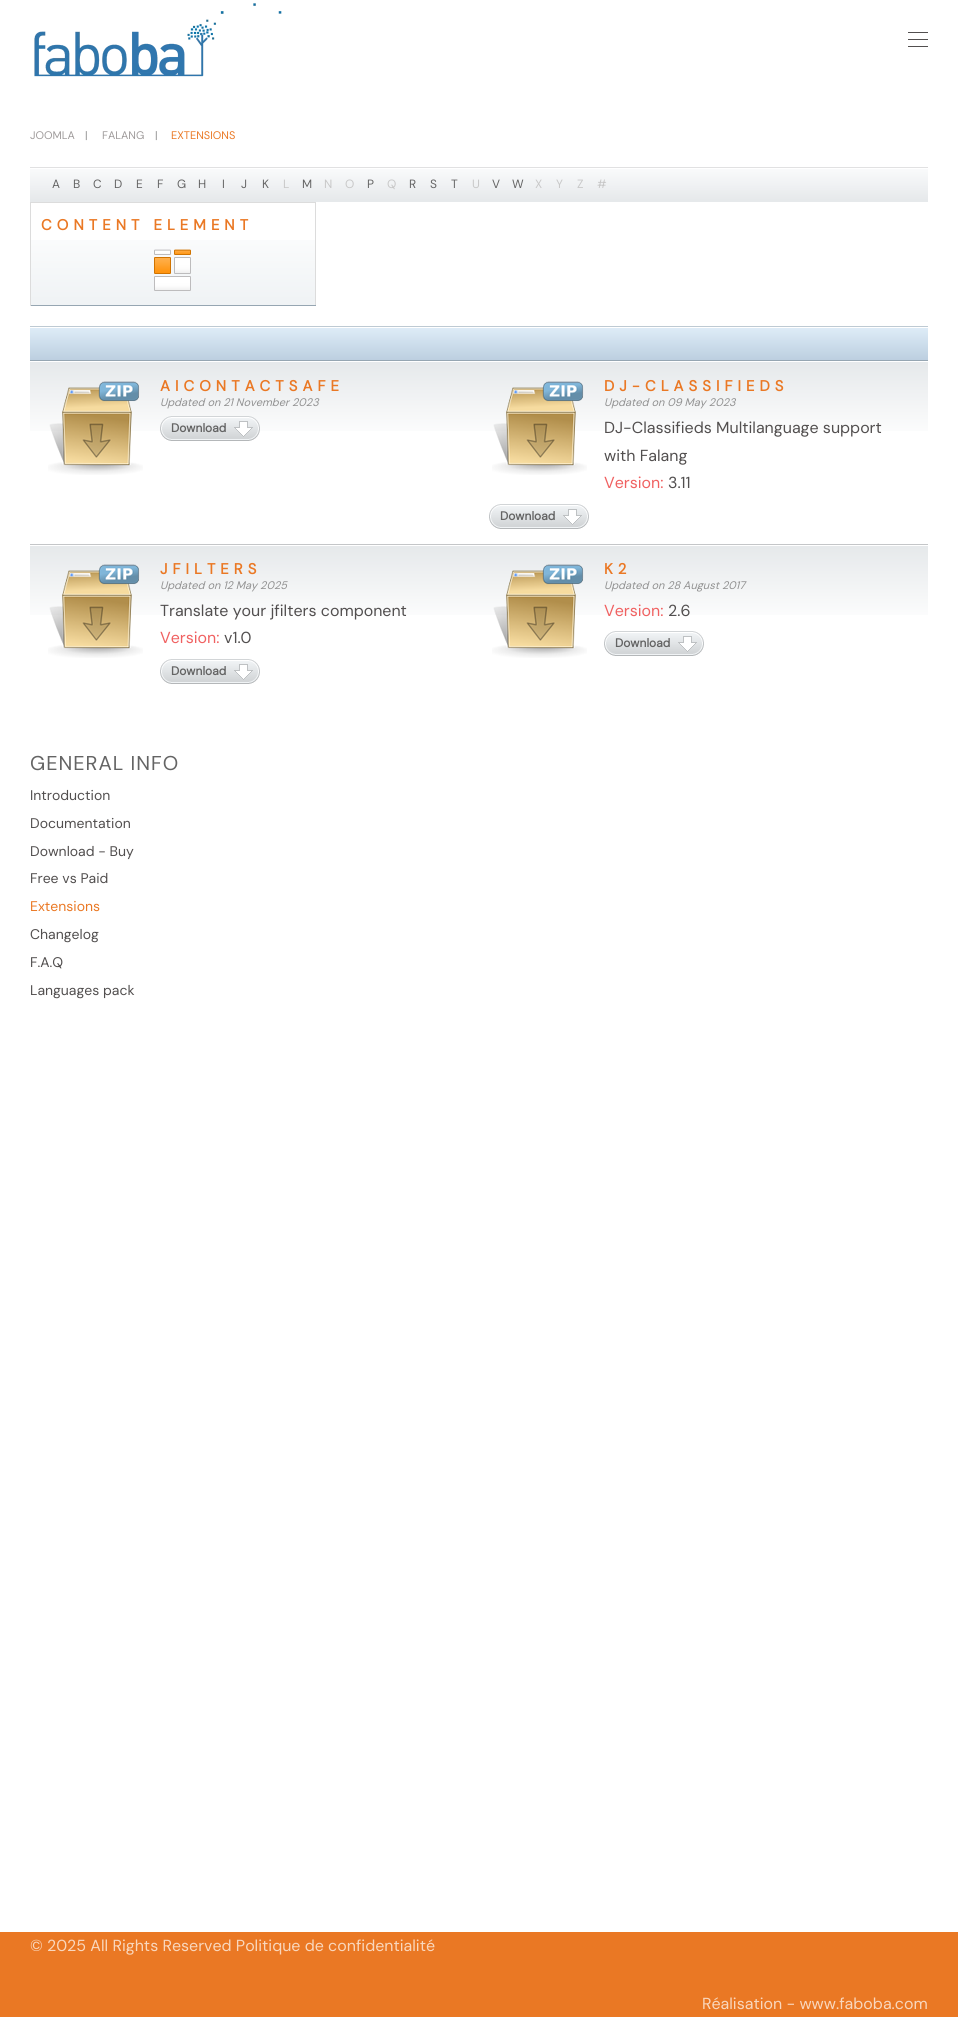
#include <cairo.h>
#include <math.h>
#include <stddef.h>


static void rgb(cairo_t *cr, int r, int g, int b)
{
	cairo_set_source_rgb(cr, r / 255.0, g / 255.0, b / 255.0);
}

static void face(cairo_t *cr, const char *family, double size, int italic, int bold)
{
	cairo_select_font_face(cr, family, italic ? CAIRO_FONT_SLANT_ITALIC : CAIRO_FONT_SLANT_NORMAL,
		bold ? CAIRO_FONT_WEIGHT_BOLD : CAIRO_FONT_WEIGHT_NORMAL);
	cairo_set_font_size(cr, size);
}

static void label(cairo_t *cr, double x, double y, const char *s)
{
	cairo_move_to(cr, x, y);
	cairo_show_text(cr, s);
}

static void tracked(cairo_t *cr, double x, double y, const char *s, double letter, double word)
{
	cairo_move_to(cr, x, y);
	while (*s) {
		char ch[5] = {0};
		int n = 0;
		do ch[n++] = *s++; while ((*s & 0xC0) == 0x80);
		cairo_show_text(cr, ch);
		cairo_rel_move_to(cr, letter + word * (*ch == ' '), 0);
	}
}

static void rect(cairo_t *cr, double x, double y, double w, double h)
{
	cairo_rectangle(cr, x, y, w, h);
	cairo_fill(cr);
}

static void image(cairo_t *cr, const char *path, double x, double y, double w, double h)
{
	cairo_surface_t *image = cairo_image_surface_create_from_png(path);
	cairo_save(cr);
	cairo_set_source_surface(cr, image, x, y);
	cairo_rectangle(cr, x, y, w, h);
	cairo_fill(cr);
	cairo_restore(cr);
	cairo_surface_destroy(image);
}

static void draw(cairo_t *cr) {
	rgb(cr, 255, 255, 255);
	cairo_paint(cr);
	image(cr, "image0.png", 34, 3, 248, 74);
	rgb(cr, 82, 79, 79);
	rect(cr, 908, 32, 20, 1);
	rect(cr, 908, 39, 20, 1);
	rect(cr, 908, 46, 20, 1);
	face(cr, "DM Sans", 11, 0, 0);
	rgb(cr, 159, 155, 155);
	label(cr, 30, 139, "JOOMLA");
	rgb(cr, 145, 145, 145);
	label(cr, 85, 139, "|");
	rgb(cr, 159, 155, 155);
	label(cr, 102, 139, "FALANG");
	rgb(cr, 145, 145, 145);
	label(cr, 155, 139, "|");
	rgb(cr, 234, 120, 36);
	label(cr, 171, 139, "EXTENSIONS");
	image(cr, "image1.png", 30, 167, 898, 35);
	face(cr, "DM Sans", 12, 0, 0);
	rgb(cr, 100, 100, 100);
	label(cr, 52, 188, "A");
	label(cr, 73, 188, "B");
	label(cr, 93, 188, "C");
	label(cr, 114, 188, "D");
	label(cr, 136, 188, "E");
	label(cr, 157, 188, "F");
	label(cr, 177, 188, "G");
	label(cr, 198, 188, "H");
	label(cr, 222, 188, "I");
	label(cr, 241, 188, "J");
	label(cr, 262, 188, "K");
	rgb(cr, 200, 200, 200);
	label(cr, 283, 188, "L");
	rgb(cr, 100, 100, 100);
	label(cr, 302, 188, "M");
	rgb(cr, 200, 200, 200);
	label(cr, 324, 188, "N");
	label(cr, 345, 188, "O");
	rgb(cr, 100, 100, 100);
	label(cr, 367, 188, "P");
	rgb(cr, 200, 200, 200);
	label(cr, 387, 188, "Q");
	rgb(cr, 100, 100, 100);
	label(cr, 409, 188, "R");
	label(cr, 430, 188, "S");
	label(cr, 451, 188, "T");
	rgb(cr, 200, 200, 200);
	label(cr, 472, 188, "U");
	rgb(cr, 100, 100, 100);
	label(cr, 492, 188, "V");
	label(cr, 512, 188, "W");
	rgb(cr, 200, 200, 200);
	label(cr, 535, 188, "X");
	label(cr, 556, 188, "Y");
	label(cr, 577, 188, "Z");
	label(cr, 597, 188, "#");
	image(cr, "image2.png", 31, 240, 284, 65);
	rgb(cr, 220, 220, 220);
	rect(cr, 30, 202, 286, 1);
	rect(cr, 315, 202, 1, 104);
	rgb(cr, 150, 166, 178);
	rect(cr, 30, 305, 286, 1);
	rgb(cr, 220, 220, 220);
	rect(cr, 30, 202, 1, 104);
	face(cr, "DM Sans", 15, 0, 1);
	rgb(cr, 234, 120, 36);
	tracked(cr, 41, 230, "CONTENT ELEMENT", 5, 0);
	image(cr, "image3.png", 154, 249, 37, 42);
	image(cr, "image4.png", 30, 326, 898, 35);
	image(cr, "image5.png", 30, 362, 898, 69);
	image(cr, "image6.png", 48, 381, 95, 94);
	tracked(cr, 160, 391, "AICONTACTSAFE", 5, 0);
	face(cr, "DM Sans", 11, 1, 0);
	rgb(cr, 145, 145, 145);
	label(cr, 160, 406, "Updated on 21 November 2023");
	image(cr, "image7.png", 160, 416, 26, 25);
	image(cr, "image8.png", 234, 416, 26, 25);
	image(cr, "image9.png", 186, 416, 48, 25);
	face(cr, "DM Sans", 12, 0, 1);
	rgb(cr, 100, 100, 100);
	label(cr, 171, 432, "Download");
	image(cr, "image6.png", 492, 381, 95, 94);
	face(cr, "DM Sans", 15, 0, 1);
	rgb(cr, 234, 120, 36);
	tracked(cr, 604, 391, "DJ-CLASSIFIEDS", 5, 0);
	face(cr, "DM Sans", 11, 1, 0);
	rgb(cr, 145, 145, 145);
	label(cr, 604, 406, "Updated on 09 May 2023");
	face(cr, "DM Sans", 16, 0, 0);
	rgb(cr, 82, 79, 79);
	label(cr, 604, 433, "DJ-Classifieds Multilanguage support");
	label(cr, 604, 461, "with Falang");
	rgb(cr, 240, 97, 97);
	label(cr, 604, 488, "Version:");
	rgb(cr, 82, 79, 79);
	label(cr, 668, 488, "3.11");
	image(cr, "image10.png", 489, 504, 26, 25);
	image(cr, "image11.png", 563, 504, 26, 25);
	image(cr, "image9.png", 515, 504, 48, 25);
	face(cr, "DM Sans", 12, 0, 1);
	rgb(cr, 100, 100, 100);
	label(cr, 500, 520, "Download");
	image(cr, "image12.png", 30, 544, 898, 71);
	image(cr, "image13.png", 48, 564, 95, 94);
	face(cr, "DM Sans", 15, 0, 1);
	rgb(cr, 234, 120, 36);
	tracked(cr, 160, 574, "JFILTERS", 5, 0);
	face(cr, "DM Sans", 11, 1, 0);
	rgb(cr, 145, 145, 145);
	label(cr, 160, 589, "Updated on 12 May 2025");
	face(cr, "DM Sans", 16, 0, 0);
	rgb(cr, 82, 79, 79);
	label(cr, 160, 616, "Translate your jfilters component");
	rgb(cr, 240, 97, 97);
	label(cr, 160, 643, "Version:");
	rgb(cr, 82, 79, 79);
	label(cr, 224, 643, "v1.0");
	image(cr, "image10.png", 160, 659, 26, 25);
	image(cr, "image11.png", 234, 659, 26, 25);
	image(cr, "image9.png", 186, 659, 48, 25);
	face(cr, "DM Sans", 12, 0, 1);
	rgb(cr, 100, 100, 100);
	label(cr, 171, 675, "Download");
	image(cr, "image13.png", 492, 564, 95, 94);
	face(cr, "DM Sans", 15, 0, 1);
	rgb(cr, 234, 120, 36);
	tracked(cr, 604, 574, "K2", 5, 0);
	face(cr, "DM Sans", 11, 1, 0);
	rgb(cr, 145, 145, 145);
	label(cr, 604, 589, "Updated on 28 August 2017");
	face(cr, "DM Sans", 16, 0, 0);
	rgb(cr, 240, 97, 97);
	label(cr, 604, 616, "Version:");
	rgb(cr, 82, 79, 79);
	label(cr, 668, 616, "2.6");
	image(cr, "image10.png", 604, 631, 26, 25);
	image(cr, "image11.png", 678, 631, 26, 25);
	image(cr, "image9.png", 630, 631, 48, 25);
	face(cr, "DM Sans", 12, 0, 1);
	rgb(cr, 100, 100, 100);
	label(cr, 615, 647, "Download");
	face(cr, "DM Sans", 20, 0, 0);
	tracked(cr, 30, 770, "GENERAL INFO", 1, 0);
	face(cr, "DM Sans", 14, 0, 0);
	rgb(cr, 82, 79, 79);
	label(cr, 30, 800, "Introduction");
	label(cr, 30, 828, "Documentation");
	label(cr, 30, 856, "Download - Buy");
	label(cr, 30, 883, "Free vs Paid");
	rgb(cr, 234, 120, 36);
	label(cr, 30, 911, "Extensions");
	rgb(cr, 82, 79, 79);
	label(cr, 30, 939, "Changelog");
	label(cr, 30, 967, "F.A.Q");
	label(cr, 30, 995, "Languages pack");
	rgb(cr, 234, 120, 36);
	rect(cr, 0, 1932, 958, 85);
	face(cr, "DM Sans", 16, 0, 0);
	rgb(cr, 249, 215, 189);
	label(cr, 30, 1951, "© 2025 All Rights Reserved Politique de confidentialité");
	label(cr, 702, 2009, "Réalisation - www.faboba.com");
}

int main(void) {
	cairo_surface_t *surface = cairo_image_surface_create(CAIRO_FORMAT_RGB24, 958, 2017);
	cairo_t *cr = cairo_create(surface);
	cairo_font_options_t *options = cairo_font_options_create();
	cairo_font_options_set_hint_metrics(options, CAIRO_HINT_METRICS_OFF);
	cairo_font_options_set_hint_style(options, CAIRO_HINT_STYLE_NONE);
	cairo_set_font_options(cr, options);
	cairo_set_miter_limit(cr, 4);
	draw(cr);
	cairo_surface_write_to_png(surface, "render.png");
	cairo_font_options_destroy(options);
	cairo_destroy(cr);
	cairo_surface_destroy(surface);
	return 0;
}
